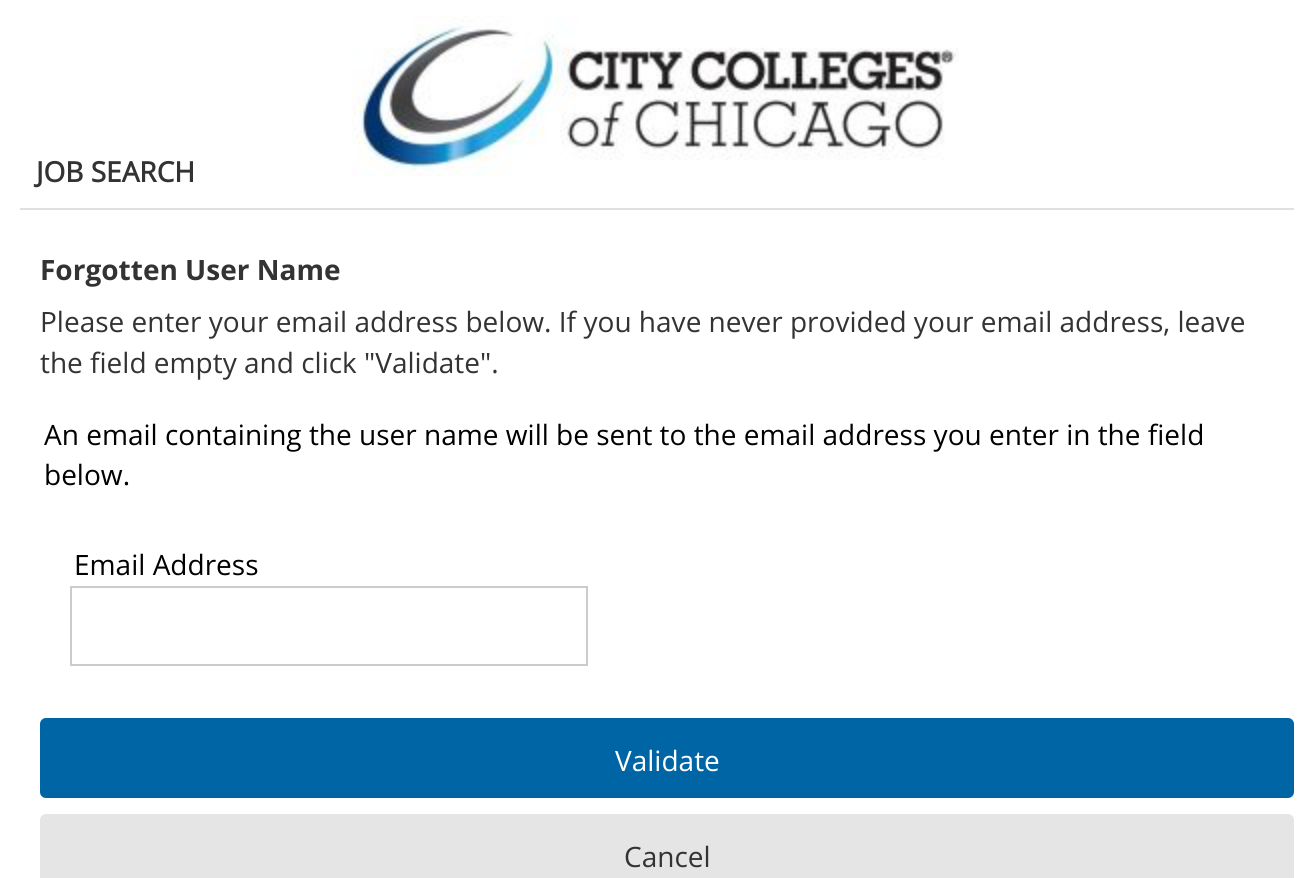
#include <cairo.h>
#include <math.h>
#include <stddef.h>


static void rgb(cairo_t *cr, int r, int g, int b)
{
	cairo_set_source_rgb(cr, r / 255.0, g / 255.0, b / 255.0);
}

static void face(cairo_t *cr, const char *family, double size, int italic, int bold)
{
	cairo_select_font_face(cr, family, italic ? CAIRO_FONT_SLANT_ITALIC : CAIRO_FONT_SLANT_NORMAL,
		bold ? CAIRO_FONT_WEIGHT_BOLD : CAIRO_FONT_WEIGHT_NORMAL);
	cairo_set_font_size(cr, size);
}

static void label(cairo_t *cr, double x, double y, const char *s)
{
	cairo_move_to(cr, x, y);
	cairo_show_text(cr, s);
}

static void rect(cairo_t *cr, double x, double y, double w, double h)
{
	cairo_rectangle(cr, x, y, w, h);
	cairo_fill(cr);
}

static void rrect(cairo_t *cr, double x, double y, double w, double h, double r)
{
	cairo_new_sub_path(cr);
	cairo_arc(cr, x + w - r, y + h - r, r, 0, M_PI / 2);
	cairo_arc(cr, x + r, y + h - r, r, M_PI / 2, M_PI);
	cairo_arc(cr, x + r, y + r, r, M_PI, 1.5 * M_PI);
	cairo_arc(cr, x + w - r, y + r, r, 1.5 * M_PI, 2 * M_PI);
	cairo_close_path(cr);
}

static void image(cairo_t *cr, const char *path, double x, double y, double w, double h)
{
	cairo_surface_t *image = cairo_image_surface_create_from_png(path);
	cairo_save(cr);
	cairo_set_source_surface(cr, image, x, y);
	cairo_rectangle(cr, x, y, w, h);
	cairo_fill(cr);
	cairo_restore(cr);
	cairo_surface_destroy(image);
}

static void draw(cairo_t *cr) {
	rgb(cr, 255, 255, 255);
	cairo_paint(cr);
	image(cr, "image0.png", 352, 16, 607, 160);
	rgb(cr, 224, 224, 224);
	rect(cr, 20, 208, 1274, 2);
	face(cr, "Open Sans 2", 28, 0, 1);
	rgb(cr, 51, 51, 51);
	label(cr, 36, 182, "JOB SEARCH");
	face(cr, "Open Sans", 28, 0, 1);
	label(cr, 40, 280, "Forgotten User Name");
	face(cr, "Open Sans", 28, 0, 0);
	label(cr, 40, 332, "Please enter your email address below. If you have never provided your email address, leave");
	label(cr, 40, 373, "the field empty and click \"Validate\".");
	rgb(cr, 0, 0, 0);
	label(cr, 44, 445, "An email containing the user name will be sent to the email address you enter in the field");
	label(cr, 44, 485, "below.");
	label(cr, 74, 575, "Email Address");
	cairo_rectangle(cr, 71, 587, 516, 78);
	rgb(cr, 204, 204, 204);
	cairo_stroke(cr);
	rgb(cr, 0, 101, 164);
	rrect(cr, 40, 718, 1254, 80, 6);
	cairo_fill(cr);
	rgb(cr, 255, 255, 255);
	label(cr, 615, 771, "Validate");
	rgb(cr, 229, 229, 229);
	rrect(cr, 40, 814, 1254, 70, 6);
	cairo_fill(cr);
	rgb(cr, 51, 51, 51);
	label(cr, 624, 867, "Cancel");
}

int main(void) {
	cairo_surface_t *surface = cairo_image_surface_create(CAIRO_FORMAT_RGB24, 1313, 878);
	cairo_t *cr = cairo_create(surface);
	cairo_font_options_t *options = cairo_font_options_create();
	cairo_font_options_set_hint_metrics(options, CAIRO_HINT_METRICS_OFF);
	cairo_font_options_set_hint_style(options, CAIRO_HINT_STYLE_NONE);
	cairo_set_font_options(cr, options);
	cairo_set_miter_limit(cr, 4);
	draw(cr);
	cairo_surface_write_to_png(surface, "render.png");
	cairo_font_options_destroy(options);
	cairo_destroy(cr);
	cairo_surface_destroy(surface);
	return 0;
}
